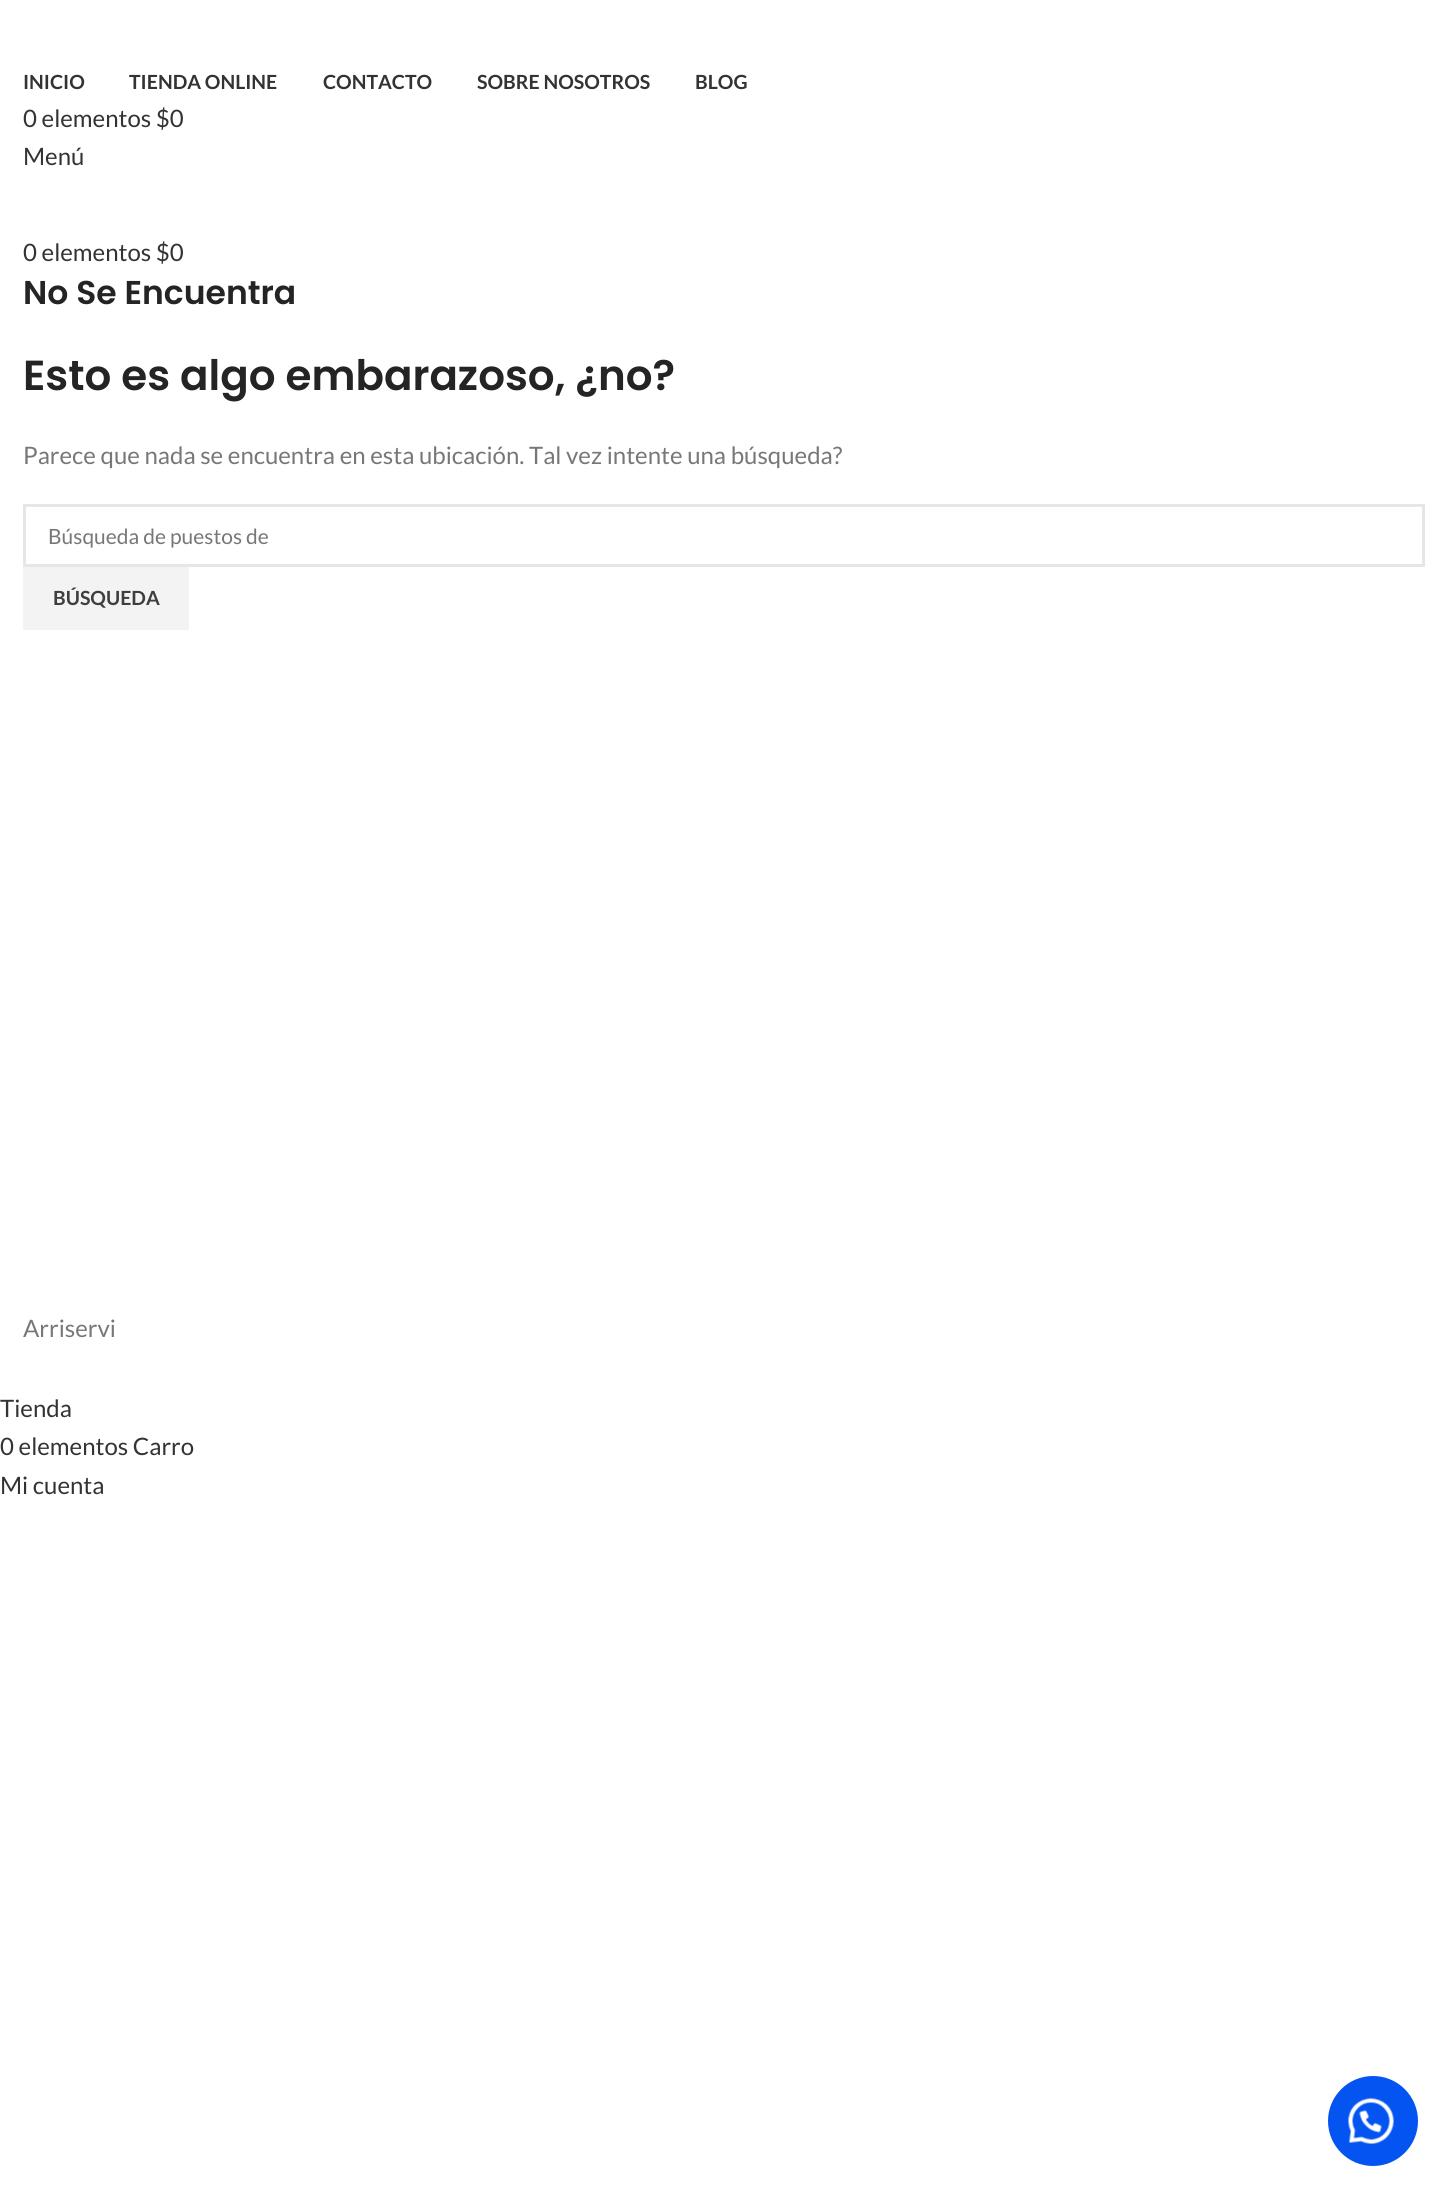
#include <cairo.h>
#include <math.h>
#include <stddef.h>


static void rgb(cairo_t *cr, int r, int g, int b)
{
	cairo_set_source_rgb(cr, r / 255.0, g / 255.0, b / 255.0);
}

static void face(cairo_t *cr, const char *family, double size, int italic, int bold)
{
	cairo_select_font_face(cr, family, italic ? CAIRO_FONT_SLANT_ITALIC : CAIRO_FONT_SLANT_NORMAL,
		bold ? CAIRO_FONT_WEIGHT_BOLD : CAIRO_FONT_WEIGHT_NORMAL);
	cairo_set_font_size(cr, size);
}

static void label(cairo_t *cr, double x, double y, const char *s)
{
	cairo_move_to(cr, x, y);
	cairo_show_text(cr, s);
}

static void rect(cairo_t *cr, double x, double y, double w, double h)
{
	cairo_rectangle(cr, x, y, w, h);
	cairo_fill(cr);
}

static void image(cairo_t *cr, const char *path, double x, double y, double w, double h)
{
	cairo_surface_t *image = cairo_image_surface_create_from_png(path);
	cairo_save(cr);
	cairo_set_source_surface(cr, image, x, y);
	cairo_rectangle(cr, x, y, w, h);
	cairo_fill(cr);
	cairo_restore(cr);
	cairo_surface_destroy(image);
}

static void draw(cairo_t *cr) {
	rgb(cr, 255, 255, 255);
	cairo_paint(cr);
	face(cr, "Lato", 19.5, 0, 1);
	rgb(cr, 51, 51, 51);
	label(cr, 23, 89, "INICIO");
	label(cr, 129, 89, "TIENDA ONLINE");
	label(cr, 323, 89, "CONTACTO");
	label(cr, 477, 89, "SOBRE NOSOTROS");
	label(cr, 695, 89, "BLOG");
	face(cr, "Lato", 24, 0, 0);
	label(cr, 23, 127, "0 elementos $0");
	label(cr, 23, 165, "Menú");
	label(cr, 23, 261, "0 elementos $0");
	face(cr, "Poppins SemiBold", 33, 0, 0);
	rgb(cr, 36, 36, 36);
	label(cr, 23, 304, "No Se Encuentra");
	face(cr, "Poppins SemiBold", 42, 0, 0);
	label(cr, 23, 390, "Esto es algo embarazoso, ¿no?");
	face(cr, "Lato", 24, 0, 0);
	rgb(cr, 119, 119, 119);
	label(cr, 23, 464, "Parece que nada se encuentra en esta ubicación. Tal vez intente una búsqueda?");
	cairo_rectangle(cr, 24.5, 505.5, 1399, 60);
	rgb(cr, 230, 230, 230);
	cairo_set_line_width(cr, 3);
	cairo_stroke(cr);
	face(cr, "Lato", 21, 0, 0);
	rgb(cr, 119, 119, 119);
	label(cr, 48, 544, "Búsqueda de puestos de");
	rgb(cr, 243, 243, 243);
	rect(cr, 23, 567, 166, 63);
	face(cr, "Lato", 19.5, 0, 1);
	rgb(cr, 62, 62, 62);
	label(cr, 53, 605, "BÚSQUEDA");
	face(cr, "Lato", 24, 0, 0);
	rgb(cr, 119, 119, 119);
	label(cr, 23, 1337, "Arriservi");
	rgb(cr, 51, 51, 51);
	label(cr, 0, 1417, "Tienda");
	label(cr, 0, 1455, "0 elementos Carro");
	label(cr, 0, 1494, "Mi cuenta");
	rgb(cr, 4, 84, 242);
	cairo_new_path(cr);
	cairo_arc(cr, 1373, 2121, 45, 0, 2 * M_PI);
	cairo_fill(cr);
	image(cr, "image0.png", 1348, 2098, 46, 46);
}

int main(void) {
	cairo_surface_t *surface = cairo_image_surface_create(CAIRO_FORMAT_RGB24, 1447, 2196);
	cairo_t *cr = cairo_create(surface);
	cairo_font_options_t *options = cairo_font_options_create();
	cairo_font_options_set_hint_metrics(options, CAIRO_HINT_METRICS_OFF);
	cairo_font_options_set_hint_style(options, CAIRO_HINT_STYLE_NONE);
	cairo_set_font_options(cr, options);
	cairo_set_miter_limit(cr, 4);
	draw(cr);
	cairo_surface_write_to_png(surface, "render.png");
	cairo_font_options_destroy(options);
	cairo_destroy(cr);
	cairo_surface_destroy(surface);
	return 0;
}
